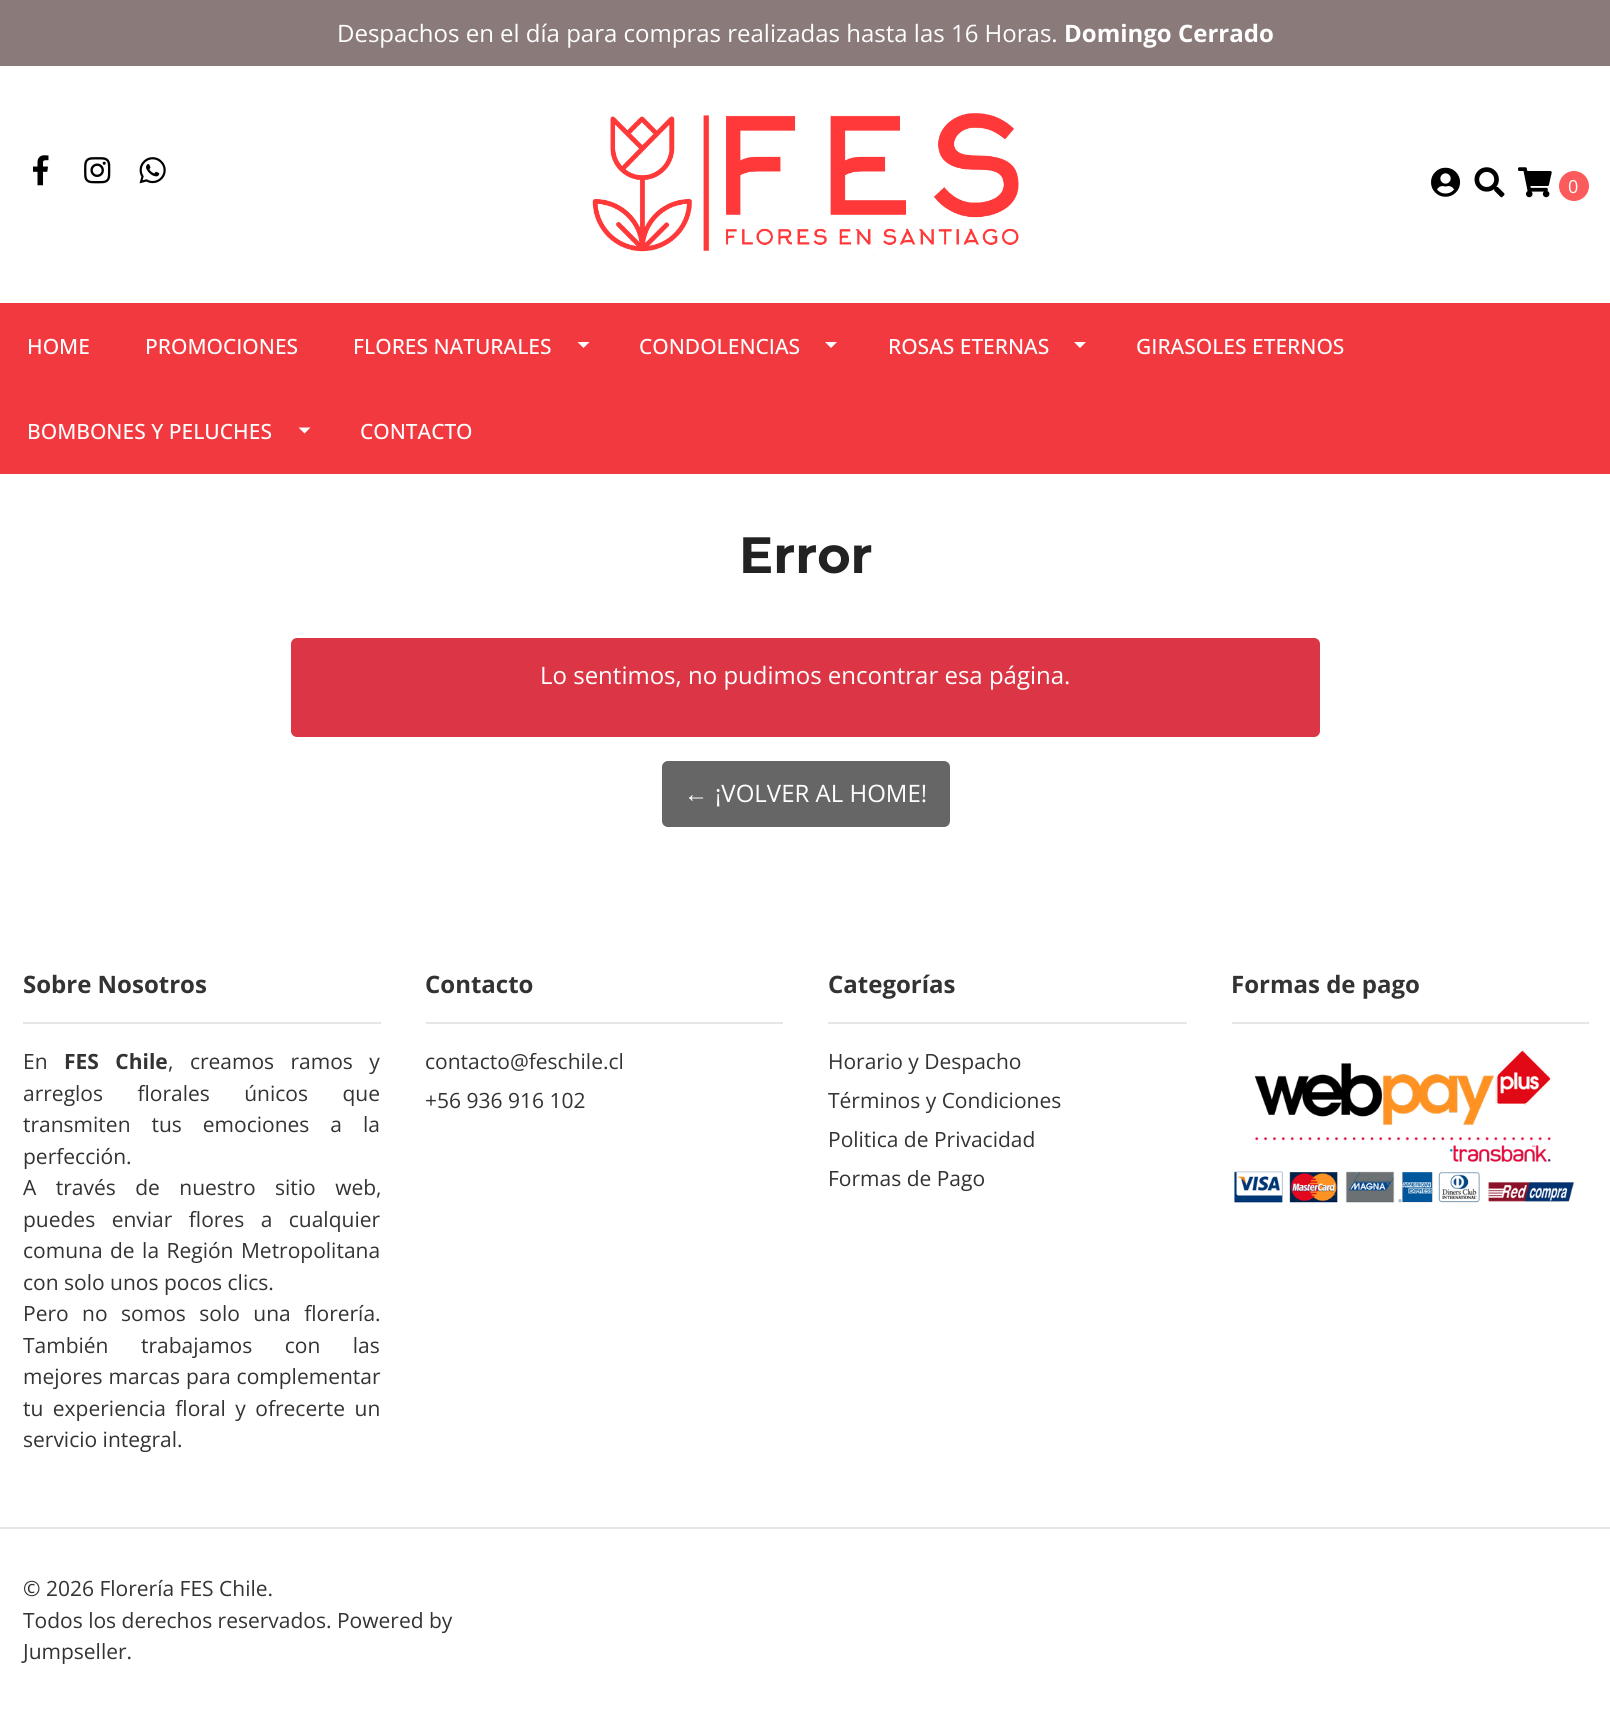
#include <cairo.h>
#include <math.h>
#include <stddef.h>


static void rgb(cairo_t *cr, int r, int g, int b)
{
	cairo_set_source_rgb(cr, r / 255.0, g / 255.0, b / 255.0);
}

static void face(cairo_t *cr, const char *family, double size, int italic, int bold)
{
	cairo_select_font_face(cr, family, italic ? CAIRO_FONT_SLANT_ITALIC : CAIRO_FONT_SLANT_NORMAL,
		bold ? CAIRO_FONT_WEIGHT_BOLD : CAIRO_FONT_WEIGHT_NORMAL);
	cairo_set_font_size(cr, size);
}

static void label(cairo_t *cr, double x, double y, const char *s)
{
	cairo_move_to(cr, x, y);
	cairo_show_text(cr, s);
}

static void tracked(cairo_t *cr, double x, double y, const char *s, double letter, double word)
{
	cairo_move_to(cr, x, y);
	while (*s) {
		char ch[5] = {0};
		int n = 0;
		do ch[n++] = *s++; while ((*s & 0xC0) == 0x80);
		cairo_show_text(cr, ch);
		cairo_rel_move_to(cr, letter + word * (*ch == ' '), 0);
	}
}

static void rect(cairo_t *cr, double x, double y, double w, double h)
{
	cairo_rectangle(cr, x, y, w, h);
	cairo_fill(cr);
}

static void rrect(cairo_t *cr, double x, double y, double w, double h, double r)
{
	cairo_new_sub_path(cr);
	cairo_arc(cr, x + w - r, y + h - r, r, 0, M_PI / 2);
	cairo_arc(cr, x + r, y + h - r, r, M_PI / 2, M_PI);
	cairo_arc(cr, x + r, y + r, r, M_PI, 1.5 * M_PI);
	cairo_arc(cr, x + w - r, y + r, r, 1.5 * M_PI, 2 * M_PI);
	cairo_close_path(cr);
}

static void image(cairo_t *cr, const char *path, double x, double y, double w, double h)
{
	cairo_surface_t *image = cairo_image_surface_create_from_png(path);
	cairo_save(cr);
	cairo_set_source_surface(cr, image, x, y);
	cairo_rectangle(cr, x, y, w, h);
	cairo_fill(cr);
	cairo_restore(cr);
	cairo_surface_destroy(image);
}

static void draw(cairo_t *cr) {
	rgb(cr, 255, 255, 255);
	cairo_paint(cr);
	rgb(cr, 138, 122, 122);
	rect(cr, 0, 0, 1610, 66);
	face(cr, "Open Sans", 24, 0, 0);
	rgb(cr, 255, 255, 255);
	label(cr, 337, 42, "Despachos en el día para compras realizadas hasta las 16 Horas.");
	face(cr, "Open Sans", 24, 0, 1);
	label(cr, 1064, 42, "Domingo Cerrado");
	image(cr, "image0.png", 33, 155, 16, 31);
	image(cr, "image1.png", 84, 157, 27, 27);
	image(cr, "image2.png", 139, 157, 27, 27);
	image(cr, "image3.png", 592, 113, 427, 143);
	image(cr, "image4.png", 1431, 167, 30, 30);
	image(cr, "image5.png", 1474, 167, 31, 31);
	image(cr, "image6.png", 1518, 167, 34, 31);
	rgb(cr, 251, 91, 91);
	cairo_arc(cr, 1574, 186, 15, 0, 2 * M_PI);
	cairo_fill(cr);
	face(cr, "Open Sans", 18, 0, 0);
	rgb(cr, 255, 255, 255);
	label(cr, 1568, 193, "0");
	rgb(cr, 241, 57, 63);
	rect(cr, 0, 303, 1610, 171);
	face(cr, "Open Sans Medium", 21, 0, 0);
	rgb(cr, 255, 255, 255);
	label(cr, 27, 354, "HOME");
	label(cr, 145, 354, "PROMOCIONES");
	label(cr, 353, 354, "FLORES NATURALES");
	cairo_new_path(cr);
	cairo_move_to(cr, 577.5, 342);
	cairo_line_to(cr, 589.5, 342);
	cairo_line_to(cr, 583.5, 348);
	cairo_close_path(cr);
	cairo_fill(cr);
	label(cr, 639, 354, "CONDOLENCIAS");
	cairo_new_path(cr);
	cairo_move_to(cr, 825, 342);
	cairo_line_to(cr, 837, 342);
	cairo_line_to(cr, 831, 348);
	cairo_close_path(cr);
	cairo_fill(cr);
	label(cr, 888, 354, "ROSAS ETERNAS");
	cairo_new_path(cr);
	cairo_move_to(cr, 1074, 342);
	cairo_line_to(cr, 1086, 342);
	cairo_line_to(cr, 1080, 348);
	cairo_close_path(cr);
	cairo_fill(cr);
	label(cr, 1136, 354, "GIRASOLES ETERNOS");
	label(cr, 27, 439, "BOMBONES Y PELUCHES");
	cairo_new_path(cr);
	cairo_move_to(cr, 298.5, 427.5);
	cairo_line_to(cr, 310.5, 427.5);
	cairo_line_to(cr, 304.5, 433.5);
	cairo_close_path(cr);
	cairo_fill(cr);
	label(cr, 360, 439, "CONTACTO");
	face(cr, "Montserrat", 51, 0, 1);
	rgb(cr, 34, 34, 34);
	label(cr, 739, 573, "Error");
	rgb(cr, 220, 53, 69);
	rrect(cr, 291, 638, 1029, 99, 6);
	cairo_fill(cr);
	face(cr, "Open Sans", 24, 0, 0);
	rgb(cr, 255, 255, 255);
	label(cr, 540, 684, "Lo sentimos, no pudimos encontrar esa página.");
	rgb(cr, 102, 102, 102);
	rrect(cr, 662, 761, 288, 66, 6);
	cairo_fill(cr);
	face(cr, "Liberation Serif", 24, 0, 0);
	rgb(cr, 255, 255, 255);
	label(cr, 684, 802, "←");
	face(cr, "Open Sans", 24, 0, 0);
	label(cr, 715, 802, "¡VOLVER AL HOME!");
	rgb(cr, 230, 230, 230);
	rect(cr, 23, 1022, 358, 2);
	face(cr, "Open Sans", 24, 0, 1);
	rgb(cr, 51, 51, 51);
	label(cr, 23, 993, "Sobre Nosotros");
	face(cr, "Open Sans", 21, 0, 0);
	label(cr, 23, 1069, "En");
	face(cr, "Open Sans", 21, 0, 1);
	tracked(cr, 64, 1069, "FES Chile", 0, 11);
	face(cr, "Open Sans", 21, 0, 0);
	tracked(cr, 168, 1069, ", creamos ramos y", 0, 11);
	tracked(cr, 23, 1101, "arreglos florales únicos que", 0, 29);
	tracked(cr, 23, 1132, "transmiten tus emociones a la", 0, 15.5);
	label(cr, 23, 1164, "perfección.");
	tracked(cr, 23, 1195, "A través de nuestro sitio web,", 0, 14);
	tracked(cr, 23, 1227, "puedes enviar flores a cualquier", 0, 11);
	tracked(cr, 23, 1258, "comuna de la Región Metropolitana", 0, 2);
	label(cr, 23, 1290, "con solo unos pocos clics.");
	tracked(cr, 23, 1321, "Pero no somos solo una florería.", 0, 8);
	tracked(cr, 23, 1353, "También trabajamos con las", 0, 27);
	tracked(cr, 23, 1384, "mejores marcas para complementar", 0, 0.5);
	tracked(cr, 23, 1416, "tu experiencia floral y ofrecerte un", 0, 4);
	label(cr, 23, 1447, "servicio integral.");
	rgb(cr, 230, 230, 230);
	rect(cr, 426, 1022, 357, 2);
	face(cr, "Open Sans", 24, 0, 1);
	rgb(cr, 51, 51, 51);
	label(cr, 425, 993, "Contacto");
	face(cr, "Open Sans", 21, 0, 0);
	label(cr, 425, 1069, "contacto@feschile.cl");
	label(cr, 425, 1108, "+56 936 916 102");
	rgb(cr, 230, 230, 230);
	rect(cr, 828, 1022, 359, 2);
	face(cr, "Open Sans", 24, 0, 1);
	rgb(cr, 51, 51, 51);
	label(cr, 828, 993, "Categorías");
	face(cr, "Open Sans", 21, 0, 0);
	label(cr, 828, 1069, "Horario y Despacho");
	label(cr, 828, 1108, "Términos y Condiciones");
	label(cr, 828, 1147, "Politica de Privacidad");
	label(cr, 828, 1186, "Formas de Pago");
	rgb(cr, 230, 230, 230);
	rect(cr, 1232, 1022, 357, 2);
	face(cr, "Open Sans", 24, 0, 1);
	rgb(cr, 51, 51, 51);
	label(cr, 1231, 993, "Formas de pago");
	image(cr, "image7.png", 1234, 1050, 340, 153);
	rgb(cr, 230, 230, 230);
	rect(cr, 0, 1527, 1610, 2);
	face(cr, "Open Sans", 21, 0, 0);
	rgb(cr, 51, 51, 51);
	label(cr, 23, 1596, "© 2026 Florería FES Chile.");
	label(cr, 23, 1628, "Todos los derechos reservados. Powered by");
	label(cr, 23, 1659, "Jumpseller.");
}

int main(void) {
	cairo_surface_t *surface = cairo_image_surface_create(CAIRO_FORMAT_RGB24, 1610, 1715);
	cairo_t *cr = cairo_create(surface);
	cairo_font_options_t *options = cairo_font_options_create();
	cairo_font_options_set_hint_metrics(options, CAIRO_HINT_METRICS_OFF);
	cairo_font_options_set_hint_style(options, CAIRO_HINT_STYLE_NONE);
	cairo_set_font_options(cr, options);
	cairo_set_miter_limit(cr, 4);
	draw(cr);
	cairo_surface_write_to_png(surface, "render.png");
	cairo_font_options_destroy(options);
	cairo_destroy(cr);
	cairo_surface_destroy(surface);
	return 0;
}
